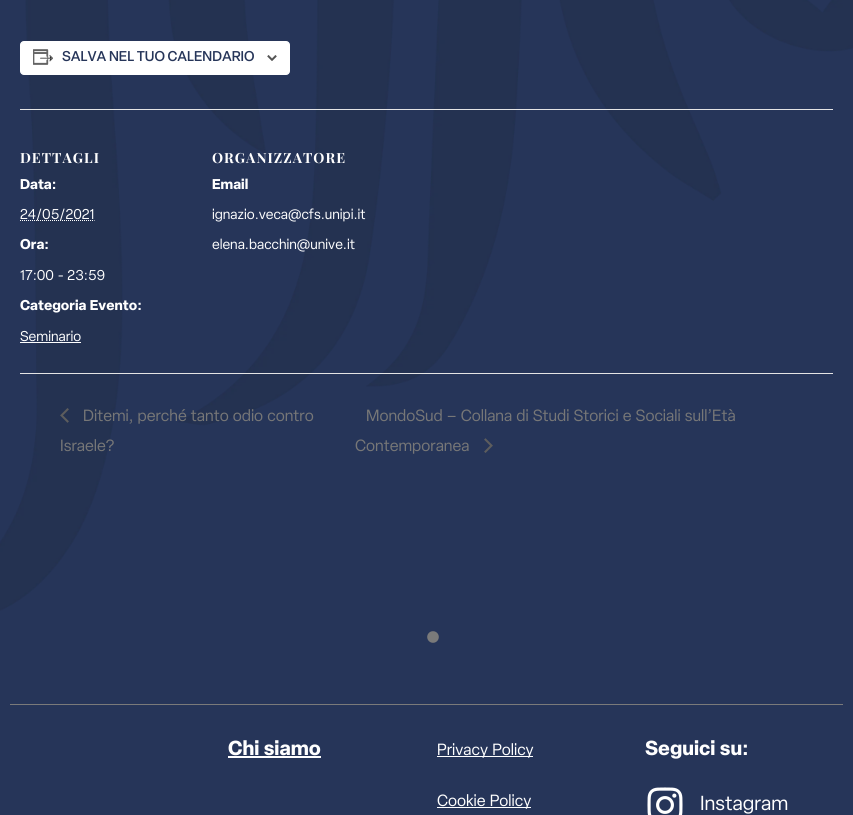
#include <cairo.h>
#include <math.h>
#include <stddef.h>


static void rgb(cairo_t *cr, int r, int g, int b)
{
	cairo_set_source_rgb(cr, r / 255.0, g / 255.0, b / 255.0);
}

static void face(cairo_t *cr, const char *family, double size, int italic, int bold)
{
	cairo_select_font_face(cr, family, italic ? CAIRO_FONT_SLANT_ITALIC : CAIRO_FONT_SLANT_NORMAL,
		bold ? CAIRO_FONT_WEIGHT_BOLD : CAIRO_FONT_WEIGHT_NORMAL);
	cairo_set_font_size(cr, size);
}

static void label(cairo_t *cr, double x, double y, const char *s)
{
	cairo_move_to(cr, x, y);
	cairo_show_text(cr, s);
}

static void tracked(cairo_t *cr, double x, double y, const char *s, double letter, double word)
{
	cairo_move_to(cr, x, y);
	while (*s) {
		char ch[5] = {0};
		int n = 0;
		do ch[n++] = *s++; while ((*s & 0xC0) == 0x80);
		cairo_show_text(cr, ch);
		cairo_rel_move_to(cr, letter + word * (*ch == ' '), 0);
	}
}

static void rect(cairo_t *cr, double x, double y, double w, double h)
{
	cairo_rectangle(cr, x, y, w, h);
	cairo_fill(cr);
}

static void rrect(cairo_t *cr, double x, double y, double w, double h, double r)
{
	cairo_new_sub_path(cr);
	cairo_arc(cr, x + w - r, y + h - r, r, 0, M_PI / 2);
	cairo_arc(cr, x + r, y + h - r, r, M_PI / 2, M_PI);
	cairo_arc(cr, x + r, y + r, r, M_PI, 1.5 * M_PI);
	cairo_arc(cr, x + w - r, y + r, r, 1.5 * M_PI, 2 * M_PI);
	cairo_close_path(cr);
}

static void image(cairo_t *cr, const char *path, double x, double y, double w, double h)
{
	cairo_surface_t *image = cairo_image_surface_create_from_png(path);
	cairo_save(cr);
	cairo_set_source_surface(cr, image, x, y);
	cairo_rectangle(cr, x, y, w, h);
	cairo_fill(cr);
	cairo_restore(cr);
	cairo_surface_destroy(image);
}

static void draw(cairo_t *cr) {
	rgb(cr, 38, 53, 89);
	cairo_paint(cr);
	image(cr, "image0.png", 0, 0, 853, 611);
	rgb(cr, 255, 255, 255);
	rrect(cr, 20.5, 41.5, 269, 33, 3.5);
	cairo_fill_preserve(cr);
	cairo_set_line_width(cr, 1);
	cairo_stroke(cr);
	image(cr, "image1.png", 33, 49, 20, 16);
	face(cr, "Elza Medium", 14, 0, 0);
	rgb(cr, 38, 53, 89);
	label(cr, 62, 61, "SALVA NEL TUO CALENDARIO");
	image(cr, "image2.png", 267, 55, 10, 6);
	rgb(cr, 228, 228, 228);
	rect(cr, 20, 109, 813, 1);
	face(cr, "Playfair Display", 14, 0, 1);
	rgb(cr, 255, 255, 255);
	tracked(cr, 20, 163, "DETTAGLI", 1, 0);
	face(cr, "Elza", 14, 0, 1);
	label(cr, 20, 189, "Data:");
	cairo_new_path(cr);
	cairo_move_to(cr, 20, 220.5);
	cairo_line_to(cr, 94.5, 220.5);
	cairo_set_dash(cr, (double[]){1, 1}, 2, 0);
	cairo_stroke(cr);
	face(cr, "Elza", 14, 0, 0);
	label(cr, 20, 219, "24/05/2021");
	face(cr, "Elza", 14, 0, 1);
	label(cr, 20, 249, "Ora:");
	face(cr, "Elza", 14, 0, 0);
	tracked(cr, 20, 280, "17:00 - 23:59", 0, 1);
	face(cr, "Elza", 14, 0, 1);
	tracked(cr, 20, 310, "Categoria Evento:", 0, 1);
	face(cr, "Elza", 14, 0, 0);
	label(cr, 20, 341, "Seminario");
	rect(cr, 20, 342, 61, 1);
	face(cr, "Playfair Display", 14, 0, 1);
	tracked(cr, 212, 163, "ORGANIZZATORE", 1, 0);
	face(cr, "Elza", 14, 0, 1);
	label(cr, 212, 189, "Email");
	face(cr, "Elza", 14, 0, 0);
	label(cr, 212, 219, "ignazio.veca@cfs.unipi.it");
	label(cr, 212, 249, "elena.bacchin@unive.it");
	rgb(cr, 228, 228, 228);
	rect(cr, 20, 373, 813, 1);
	image(cr, "image3.png", 60, 408, 9, 15);
	face(cr, "Elza", 16, 0, 0);
	rgb(cr, 119, 119, 119);
	tracked(cr, 83, 421, "Ditemi, perché tanto odio contro", 0, 1);
	label(cr, 60, 451, "Israele?");
	tracked(cr, 366, 421, "MondoSud – Collana di Studi Storici e Sociali sull’Età", 0, 1);
	label(cr, 355, 451, "Contemporanea");
	image(cr, "image4.png", 484, 438, 9, 15);
	rgb(cr, 122, 122, 122);
	rect(cr, 10, 704, 833, 1);
	image(cr, "image5.png", 427, 631, 12, 12);
	face(cr, "Elza", 20, 0, 1);
	rgb(cr, 255, 255, 255);
	tracked(cr, 228, 755, "Chi siamo", 0, 1);
	rect(cr, 228, 756, 93, 2);
	rect(cr, 437, 756, 96, 1);
	face(cr, "Elza", 16, 0, 0);
	tracked(cr, 437, 755, "Privacy Policy", 0, 1);
	rect(cr, 437, 807, 94, 1);
	tracked(cr, 437, 806, "Cookie Policy", 0, 1);
	face(cr, "Elza", 20, 0, 1);
	tracked(cr, 645, 755, "Seguici su:", 0, 1);
	image(cr, "image6.png", 647, 787, 36, 28);
	face(cr, "Elza", 20, 0, 0);
	label(cr, 700, 810, "Instagram");
}

int main(void) {
	cairo_surface_t *surface = cairo_image_surface_create(CAIRO_FORMAT_RGB24, 853, 815);
	cairo_t *cr = cairo_create(surface);
	cairo_font_options_t *options = cairo_font_options_create();
	cairo_font_options_set_hint_metrics(options, CAIRO_HINT_METRICS_OFF);
	cairo_font_options_set_hint_style(options, CAIRO_HINT_STYLE_NONE);
	cairo_set_font_options(cr, options);
	cairo_set_miter_limit(cr, 4);
	draw(cr);
	cairo_surface_write_to_png(surface, "render.png");
	cairo_font_options_destroy(options);
	cairo_destroy(cr);
	cairo_surface_destroy(surface);
	return 0;
}
